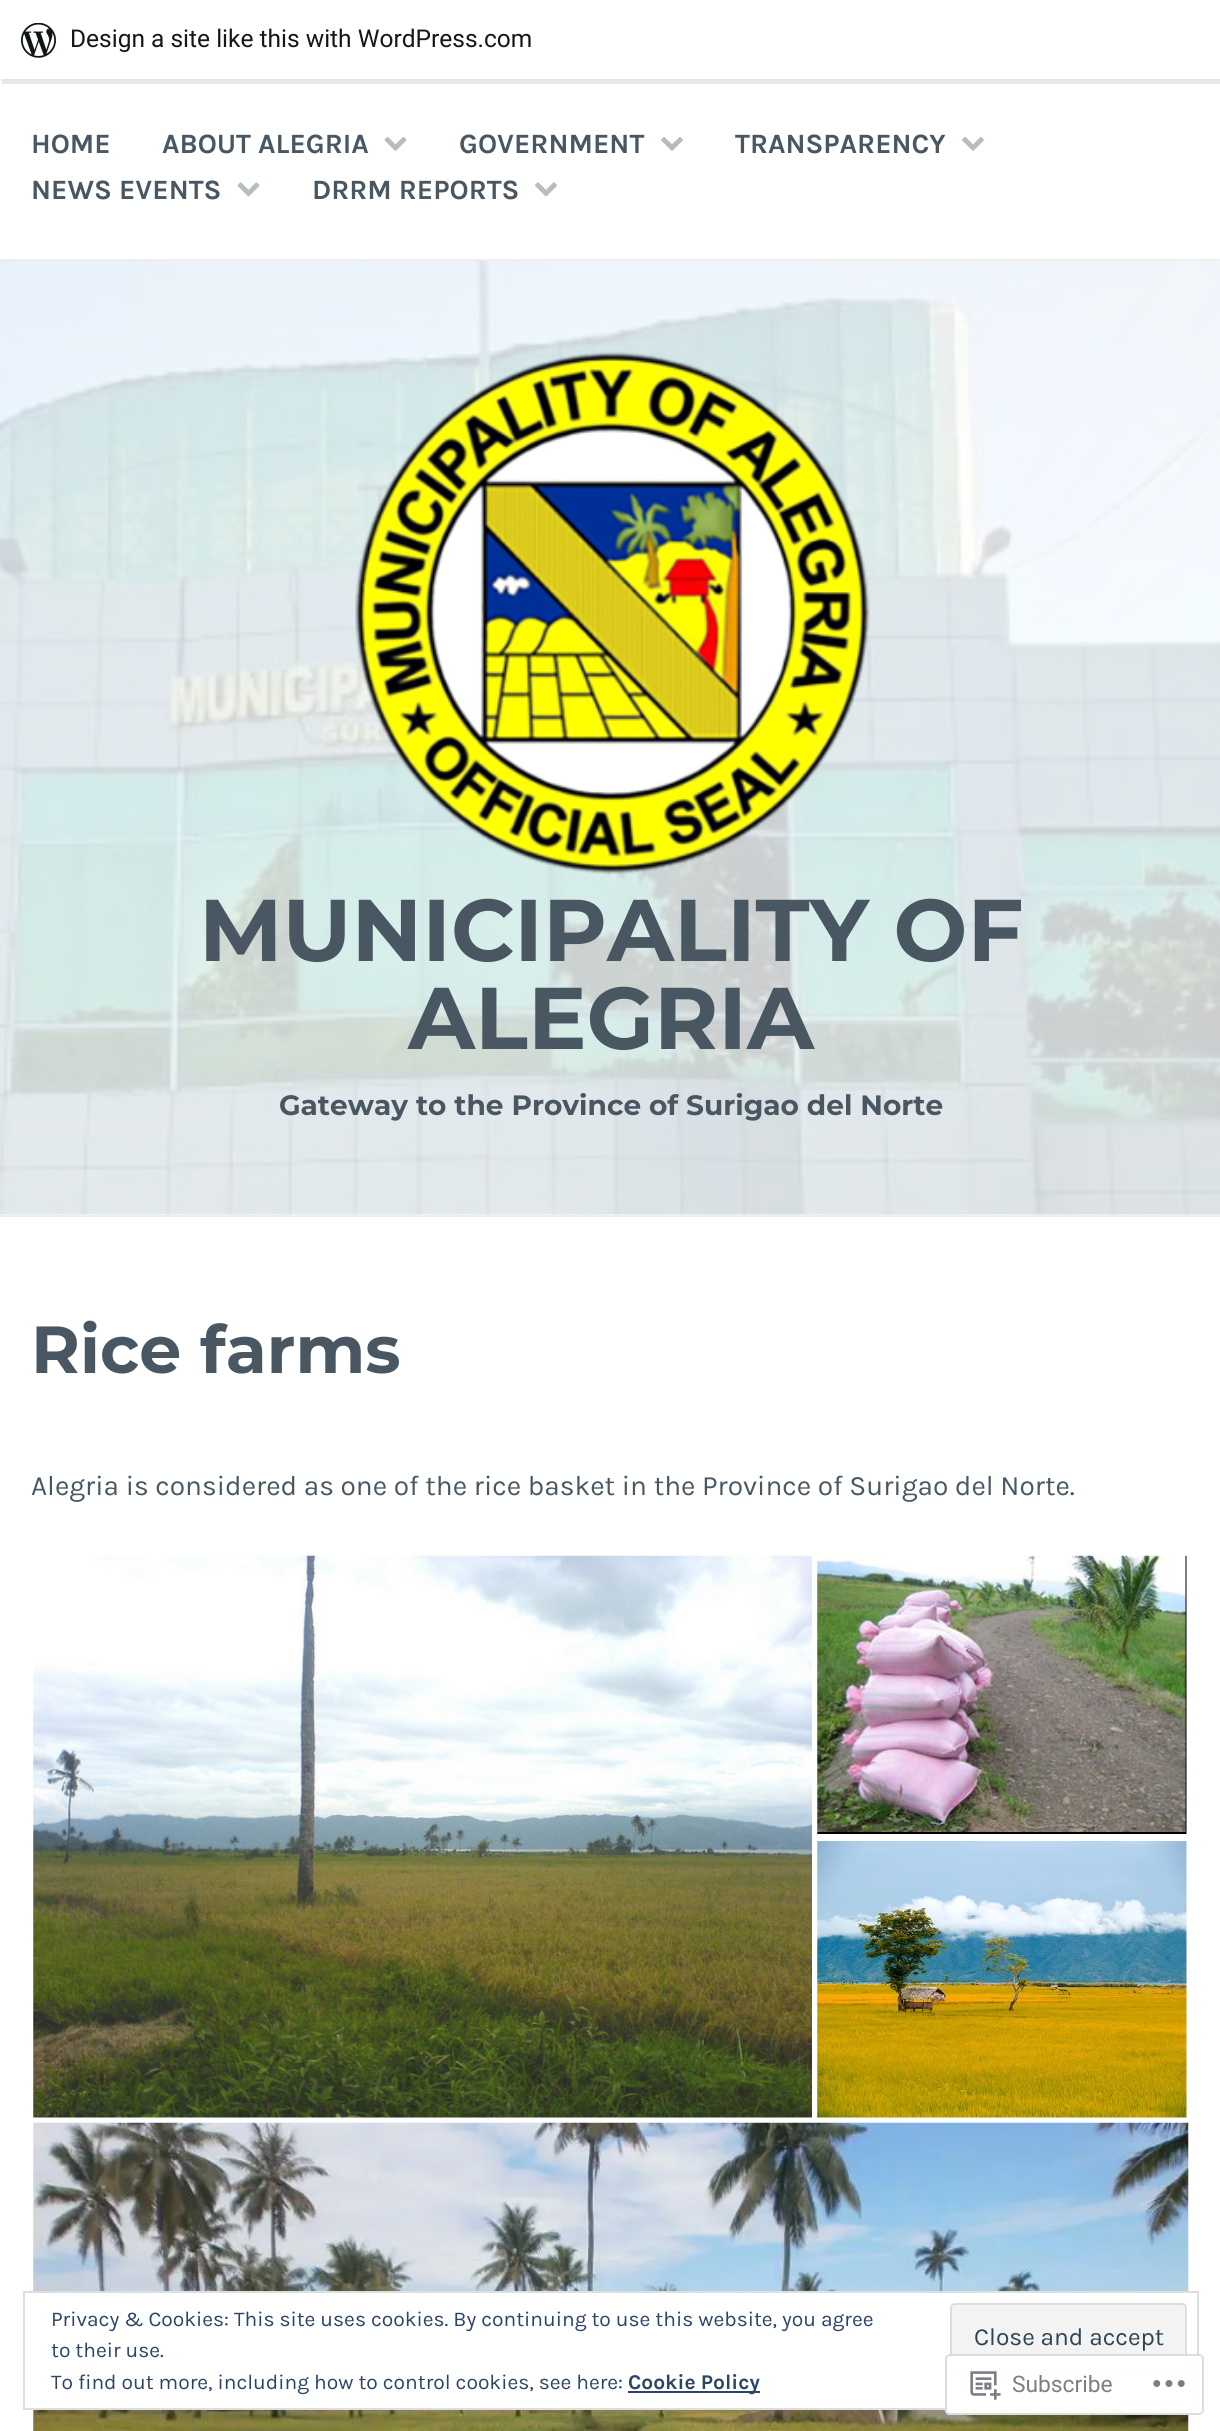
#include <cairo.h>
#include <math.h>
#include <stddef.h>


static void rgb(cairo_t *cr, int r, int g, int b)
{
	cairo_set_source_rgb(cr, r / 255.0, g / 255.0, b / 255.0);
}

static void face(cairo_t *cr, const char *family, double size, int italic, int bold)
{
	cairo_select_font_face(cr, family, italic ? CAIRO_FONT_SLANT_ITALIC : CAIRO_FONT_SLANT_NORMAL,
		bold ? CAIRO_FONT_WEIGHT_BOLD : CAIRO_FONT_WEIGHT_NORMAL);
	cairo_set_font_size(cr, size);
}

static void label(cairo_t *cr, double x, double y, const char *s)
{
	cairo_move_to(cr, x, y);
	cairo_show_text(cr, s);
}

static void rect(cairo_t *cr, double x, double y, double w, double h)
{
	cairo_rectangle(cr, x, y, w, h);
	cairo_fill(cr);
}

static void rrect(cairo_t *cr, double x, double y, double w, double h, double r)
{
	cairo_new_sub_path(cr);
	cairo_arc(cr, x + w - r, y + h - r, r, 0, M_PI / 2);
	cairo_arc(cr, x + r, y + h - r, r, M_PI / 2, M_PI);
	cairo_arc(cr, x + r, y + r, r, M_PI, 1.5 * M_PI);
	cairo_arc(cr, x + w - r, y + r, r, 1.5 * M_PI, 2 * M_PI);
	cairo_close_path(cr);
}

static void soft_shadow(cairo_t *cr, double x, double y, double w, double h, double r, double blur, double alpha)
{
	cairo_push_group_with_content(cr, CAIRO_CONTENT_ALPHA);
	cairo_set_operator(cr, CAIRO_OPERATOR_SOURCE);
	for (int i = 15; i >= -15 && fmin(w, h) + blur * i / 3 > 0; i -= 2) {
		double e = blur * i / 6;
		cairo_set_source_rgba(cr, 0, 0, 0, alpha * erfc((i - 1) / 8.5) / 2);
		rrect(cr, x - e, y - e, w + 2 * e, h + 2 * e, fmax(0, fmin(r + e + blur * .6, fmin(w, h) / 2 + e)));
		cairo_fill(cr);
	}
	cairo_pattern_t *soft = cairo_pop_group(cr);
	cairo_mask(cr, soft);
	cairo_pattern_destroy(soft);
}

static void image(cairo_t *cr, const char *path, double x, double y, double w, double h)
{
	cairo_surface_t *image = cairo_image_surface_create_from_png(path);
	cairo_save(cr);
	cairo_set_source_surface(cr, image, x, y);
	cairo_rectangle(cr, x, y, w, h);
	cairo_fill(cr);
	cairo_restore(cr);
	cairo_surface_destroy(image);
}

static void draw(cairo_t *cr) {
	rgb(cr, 255, 255, 255);
	cairo_paint(cr);
	rgb(cr, 0, 0, 0);
	soft_shadow(cr, 0, 2, 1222, 79, 0, 2, 0.05);
	cairo_set_source_rgba(cr, 0, 0, 0, 0.08);
	cairo_new_path(cr);
	cairo_move_to(cr, 2, 79);
	cairo_line_to(cr, 2, 84);
	cairo_line_to(cr, 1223, 84);
	cairo_line_to(cr, 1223, 5);
	cairo_line_to(cr, 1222, 5);
	cairo_line_to(cr, 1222, 79);
	cairo_close_path(cr);
	cairo_fill(cr);
	rgb(cr, 255, 255, 255);
	rect(cr, 0, 0, 1220, 79);
	image(cr, "image0.png", 21, 23, 35, 35);
	face(cr, "Roboto", 24.5, 0, 0);
	rgb(cr, 23, 23, 23);
	label(cr, 70, 47, "Design a site like this with WordPress.com");
	rgb(cr, 238, 238, 238);
	rect(cr, 0, 259, 1220, 2);
	face(cr, "Karla", 28, 0, 1);
	rgb(cr, 73, 87, 98);
	label(cr, 31, 153, "HOME");
	label(cr, 162, 153, "ABOUT ALEGRIA");
	image(cr, "image1.png", 384, 136, 23, 15);
	label(cr, 459, 153, "GOVERNMENT");
	image(cr, "image2.png", 661, 136, 22, 15);
	label(cr, 735, 153, "TRANSPARENCY");
	image(cr, "image2.png", 962, 136, 22, 15);
	label(cr, 31, 199, "NEWS EVENTS");
	image(cr, "image3.png", 237, 182, 23, 15);
	label(cr, 312, 199, "DRRM REPORTS");
	image(cr, "image4.png", 535, 182, 22, 15);
	image(cr, "image5.png", 0, 261, 1220, 954);
	image(cr, "image6.png", 355, 351, 515, 523);
	face(cr, "Montserrat", 87.5, 0, 1);
	label(cr, 199, 961, "MUNICIPALITY OF");
	label(cr, 408, 1049, "ALEGRIA");
	face(cr, "Montserrat", 28, 0, 1);
	label(cr, 279, 1115, "Gateway to the Province of Surigao del Norte");
	rgb(cr, 238, 238, 238);
	rect(cr, 0, 1215, 1220, 2);
	face(cr, "Montserrat", 66.5, 0, 1);
	rgb(cr, 73, 87, 98);
	label(cr, 31, 1373, "Rice farms");
	face(cr, "Karla", 28, 0, 0);
	label(cr, 31, 1495, "Alegria is considered as one of the rice basket in the Province of Surigao del Norte.");
	image(cr, "image7.png", 33, 1555, 779, 563);
	image(cr, "image8.png", 817, 1555, 370, 279);
	image(cr, "image9.png", 817, 1841, 370, 277);
	image(cr, "image10.png", 33, 2122, 1156, 309);
	rgb(cr, 255, 255, 255);
	rect(cr, 33, 2293, 1156, 115);
	cairo_rectangle(cr, 24, 2292, 1174, 117);
	rgb(cr, 222, 222, 222);
	cairo_stroke(cr);
	face(cr, "Karla", 21, 0, 0);
	rgb(cr, 46, 68, 103);
	label(cr, 51, 2326, "Privacy & Cookies: This site uses cookies. By continuing to use this website, you agree");
	label(cr, 51, 2357, "to their use.");
	rgb(cr, 243, 243, 243);
	rrect(cr, 951, 2304, 235, 66, 4);
	cairo_fill_preserve(cr);
	rgb(cr, 222, 222, 222);
	cairo_stroke(cr);
	face(cr, "Karla", 24.5, 0, 0);
	rgb(cr, 46, 68, 83);
	label(cr, 974, 2345, "Close and accept");
	face(cr, "Karla", 21, 0, 0);
	rgb(cr, 46, 68, 103);
	label(cr, 51, 2389, "To find out more, including how to control cookies, see here:");
	rect(cr, 628, 2391, 132, 2);
	face(cr, "Karla", 21, 0, 1);
	label(cr, 628, 2389, "Cookie Policy");
	cairo_set_source_rgba(cr, 1, 1, 1, 0.98);
	rrect(cr, 945, 2354, 259, 61, 5);
	cairo_fill(cr);
	rrect(cr, 946, 2355, 257, 59, 4);
	cairo_set_source_rgba(cr, 0.863, 0.863, 0.871, 0.98);
	cairo_stroke(cr);
	image(cr, "image11.png", 970, 2371, 31, 29);
	face(cr, "Roboto", 22.75, 0, 0);
	rgb(cr, 123, 127, 133);
	label(cr, 1012, 2392, "Subscribe");
	image(cr, "image12.png", 1153, 2380, 32, 7);
}

int main(void) {
	cairo_surface_t *surface = cairo_image_surface_create(CAIRO_FORMAT_RGB24, 1220, 2431);
	cairo_t *cr = cairo_create(surface);
	cairo_font_options_t *options = cairo_font_options_create();
	cairo_font_options_set_hint_metrics(options, CAIRO_HINT_METRICS_OFF);
	cairo_font_options_set_hint_style(options, CAIRO_HINT_STYLE_NONE);
	cairo_set_font_options(cr, options);
	cairo_set_miter_limit(cr, 4);
	draw(cr);
	cairo_surface_write_to_png(surface, "render.png");
	cairo_font_options_destroy(options);
	cairo_destroy(cr);
	cairo_surface_destroy(surface);
	return 0;
}
